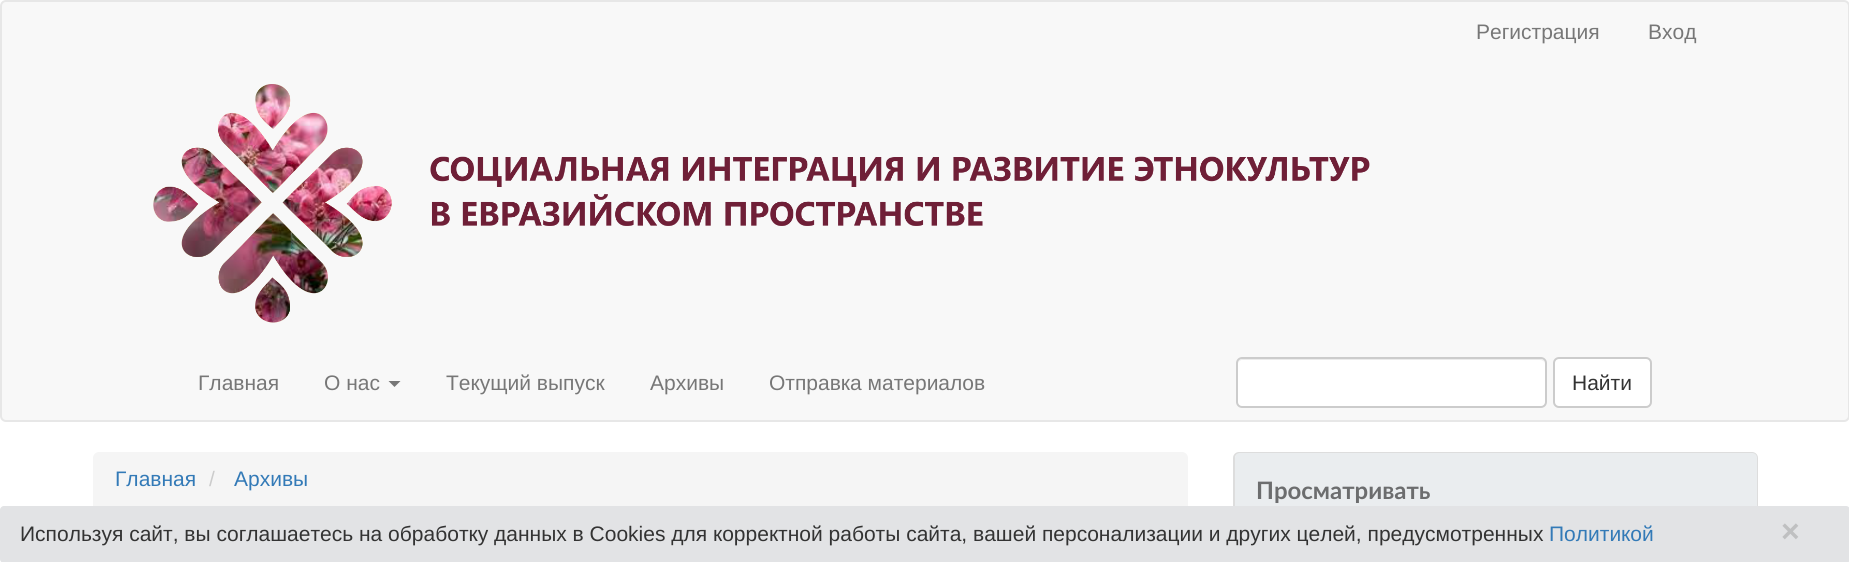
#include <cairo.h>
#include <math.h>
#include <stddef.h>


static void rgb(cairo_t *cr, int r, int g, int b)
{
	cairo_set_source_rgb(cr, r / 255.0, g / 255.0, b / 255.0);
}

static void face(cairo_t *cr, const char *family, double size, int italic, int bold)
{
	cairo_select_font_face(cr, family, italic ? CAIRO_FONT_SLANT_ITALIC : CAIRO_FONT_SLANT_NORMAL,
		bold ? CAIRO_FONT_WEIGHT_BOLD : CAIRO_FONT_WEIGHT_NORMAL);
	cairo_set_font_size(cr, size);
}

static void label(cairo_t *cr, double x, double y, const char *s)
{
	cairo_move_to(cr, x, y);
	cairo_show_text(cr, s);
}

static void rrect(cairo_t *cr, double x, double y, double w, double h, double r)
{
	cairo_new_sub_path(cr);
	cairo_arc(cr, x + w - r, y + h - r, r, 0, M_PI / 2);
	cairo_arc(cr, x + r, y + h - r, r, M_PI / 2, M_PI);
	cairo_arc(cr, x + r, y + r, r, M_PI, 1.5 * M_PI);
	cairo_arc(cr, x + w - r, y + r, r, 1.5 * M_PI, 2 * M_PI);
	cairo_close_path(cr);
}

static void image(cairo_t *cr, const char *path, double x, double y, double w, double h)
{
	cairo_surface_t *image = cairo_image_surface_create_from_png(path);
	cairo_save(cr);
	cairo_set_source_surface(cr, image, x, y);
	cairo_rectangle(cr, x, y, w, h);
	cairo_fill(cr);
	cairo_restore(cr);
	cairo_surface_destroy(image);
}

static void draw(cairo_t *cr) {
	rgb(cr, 255, 255, 255);
	cairo_paint(cr);
	rgb(cr, 248, 248, 248);
	rrect(cr, 1, 1, 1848, 420, 5);
	cairo_fill_preserve(cr);
	rgb(cr, 231, 231, 231);
	cairo_stroke(cr);
	face(cr, "Liberation Sans", 21, 0, 0);
	rgb(cr, 119, 119, 119);
	label(cr, 1476, 39, "Регистрация");
	label(cr, 1648, 39, "Вход");
	image(cr, "image0.png", 153, 84, 1217, 239);
	label(cr, 198, 390, "Главная");
	label(cr, 324, 390, "О нас");
	cairo_new_path(cr);
	cairo_move_to(cr, 388.5, 381);
	cairo_line_to(cr, 400.5, 381);
	cairo_line_to(cr, 394.5, 387);
	cairo_close_path(cr);
	cairo_fill(cr);
	label(cr, 446, 390, "Текущий выпуск");
	label(cr, 650, 390, "Архивы");
	label(cr, 769, 390, "Отправка материалов");
	rgb(cr, 255, 255, 255);
	rrect(cr, 1236, 357, 311, 51, 6);
	cairo_fill(cr);
	rgb(cr, 236, 236, 236);
	cairo_new_path(cr);
	cairo_move_to(cr, 1242, 360);
	cairo_line_to(cr, 1540, 360);
	cairo_curve_to(cr, 1543, 360, 1545, 362, 1545, 364);
	cairo_curve_to(cr, 1545, 361, 1543, 359, 1540, 359);
	cairo_line_to(cr, 1243, 359);
	cairo_curve_to(cr, 1240, 359, 1238, 361, 1238, 364);
	cairo_curve_to(cr, 1238, 362, 1240, 360, 1242, 360);
	cairo_close_path(cr);
	cairo_fill(cr);
	rrect(cr, 1237, 358, 309, 49, 5);
	rgb(cr, 204, 204, 204);
	cairo_stroke(cr);
	rgb(cr, 255, 255, 255);
	rrect(cr, 1554, 358, 97, 49, 5);
	cairo_fill_preserve(cr);
	rgb(cr, 204, 204, 204);
	cairo_stroke(cr);
	rgb(cr, 51, 51, 51);
	label(cr, 1572, 390, "Найти");
	rgb(cr, 245, 245, 245);
	rrect(cr, 93, 452, 1095, 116, 6);
	cairo_fill(cr);
	rgb(cr, 51, 122, 183);
	label(cr, 115, 486, "Главная");
	rgb(cr, 204, 204, 204);
	label(cr, 209, 486, "/");
	rgb(cr, 51, 122, 183);
	label(cr, 234, 486, "Архивы");
	rrect(cr, 1234, 453, 523, 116, 5);
	rgb(cr, 221, 221, 221);
	cairo_stroke(cr);
	rgb(cr, 234, 237, 239);
	cairo_new_path(cr);
	cairo_move_to(cr, 1240, 453);
	cairo_line_to(cr, 1752, 453);
	cairo_curve_to(cr, 1755, 453, 1757, 455, 1757, 458);
	cairo_line_to(cr, 1757, 530);
	cairo_line_to(cr, 1235, 530);
	cairo_line_to(cr, 1235, 458);
	cairo_curve_to(cr, 1235, 455, 1237, 453, 1240, 453);
	cairo_close_path(cr);
	cairo_fill(cr);
	face(cr, "Lato", 24, 0, 1);
	rgb(cr, 108, 109, 110);
	label(cr, 1256, 499, "Просматривать");
	rgb(cr, 226, 227, 229);
	rrect(cr, 0, 506, 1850, 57, 4);
	cairo_fill(cr);
	face(cr, "Liberation Sans", 21, 0, 0);
	rgb(cr, 51, 51, 51);
	label(cr, 20, 541, "Используя сайт, вы соглашаетесь на обработку данных в Cookies для корректной работы сайта, вашей персонализации и других целей, предусмотренных");
	rgb(cr, 51, 122, 183);
	label(cr, 1549, 541, "Политикой");
	face(cr, "Liberation Sans", 32, 0, 1);
	rgb(cr, 191, 192, 193);
	label(cr, 1781, 542, "×");
}

int main(void) {
	cairo_surface_t *surface = cairo_image_surface_create(CAIRO_FORMAT_RGB24, 1849, 562);
	cairo_t *cr = cairo_create(surface);
	cairo_font_options_t *options = cairo_font_options_create();
	cairo_font_options_set_hint_metrics(options, CAIRO_HINT_METRICS_OFF);
	cairo_font_options_set_hint_style(options, CAIRO_HINT_STYLE_NONE);
	cairo_set_font_options(cr, options);
	cairo_set_miter_limit(cr, 4);
	draw(cr);
	cairo_surface_write_to_png(surface, "render.png");
	cairo_font_options_destroy(options);
	cairo_destroy(cr);
	cairo_surface_destroy(surface);
	return 0;
}
